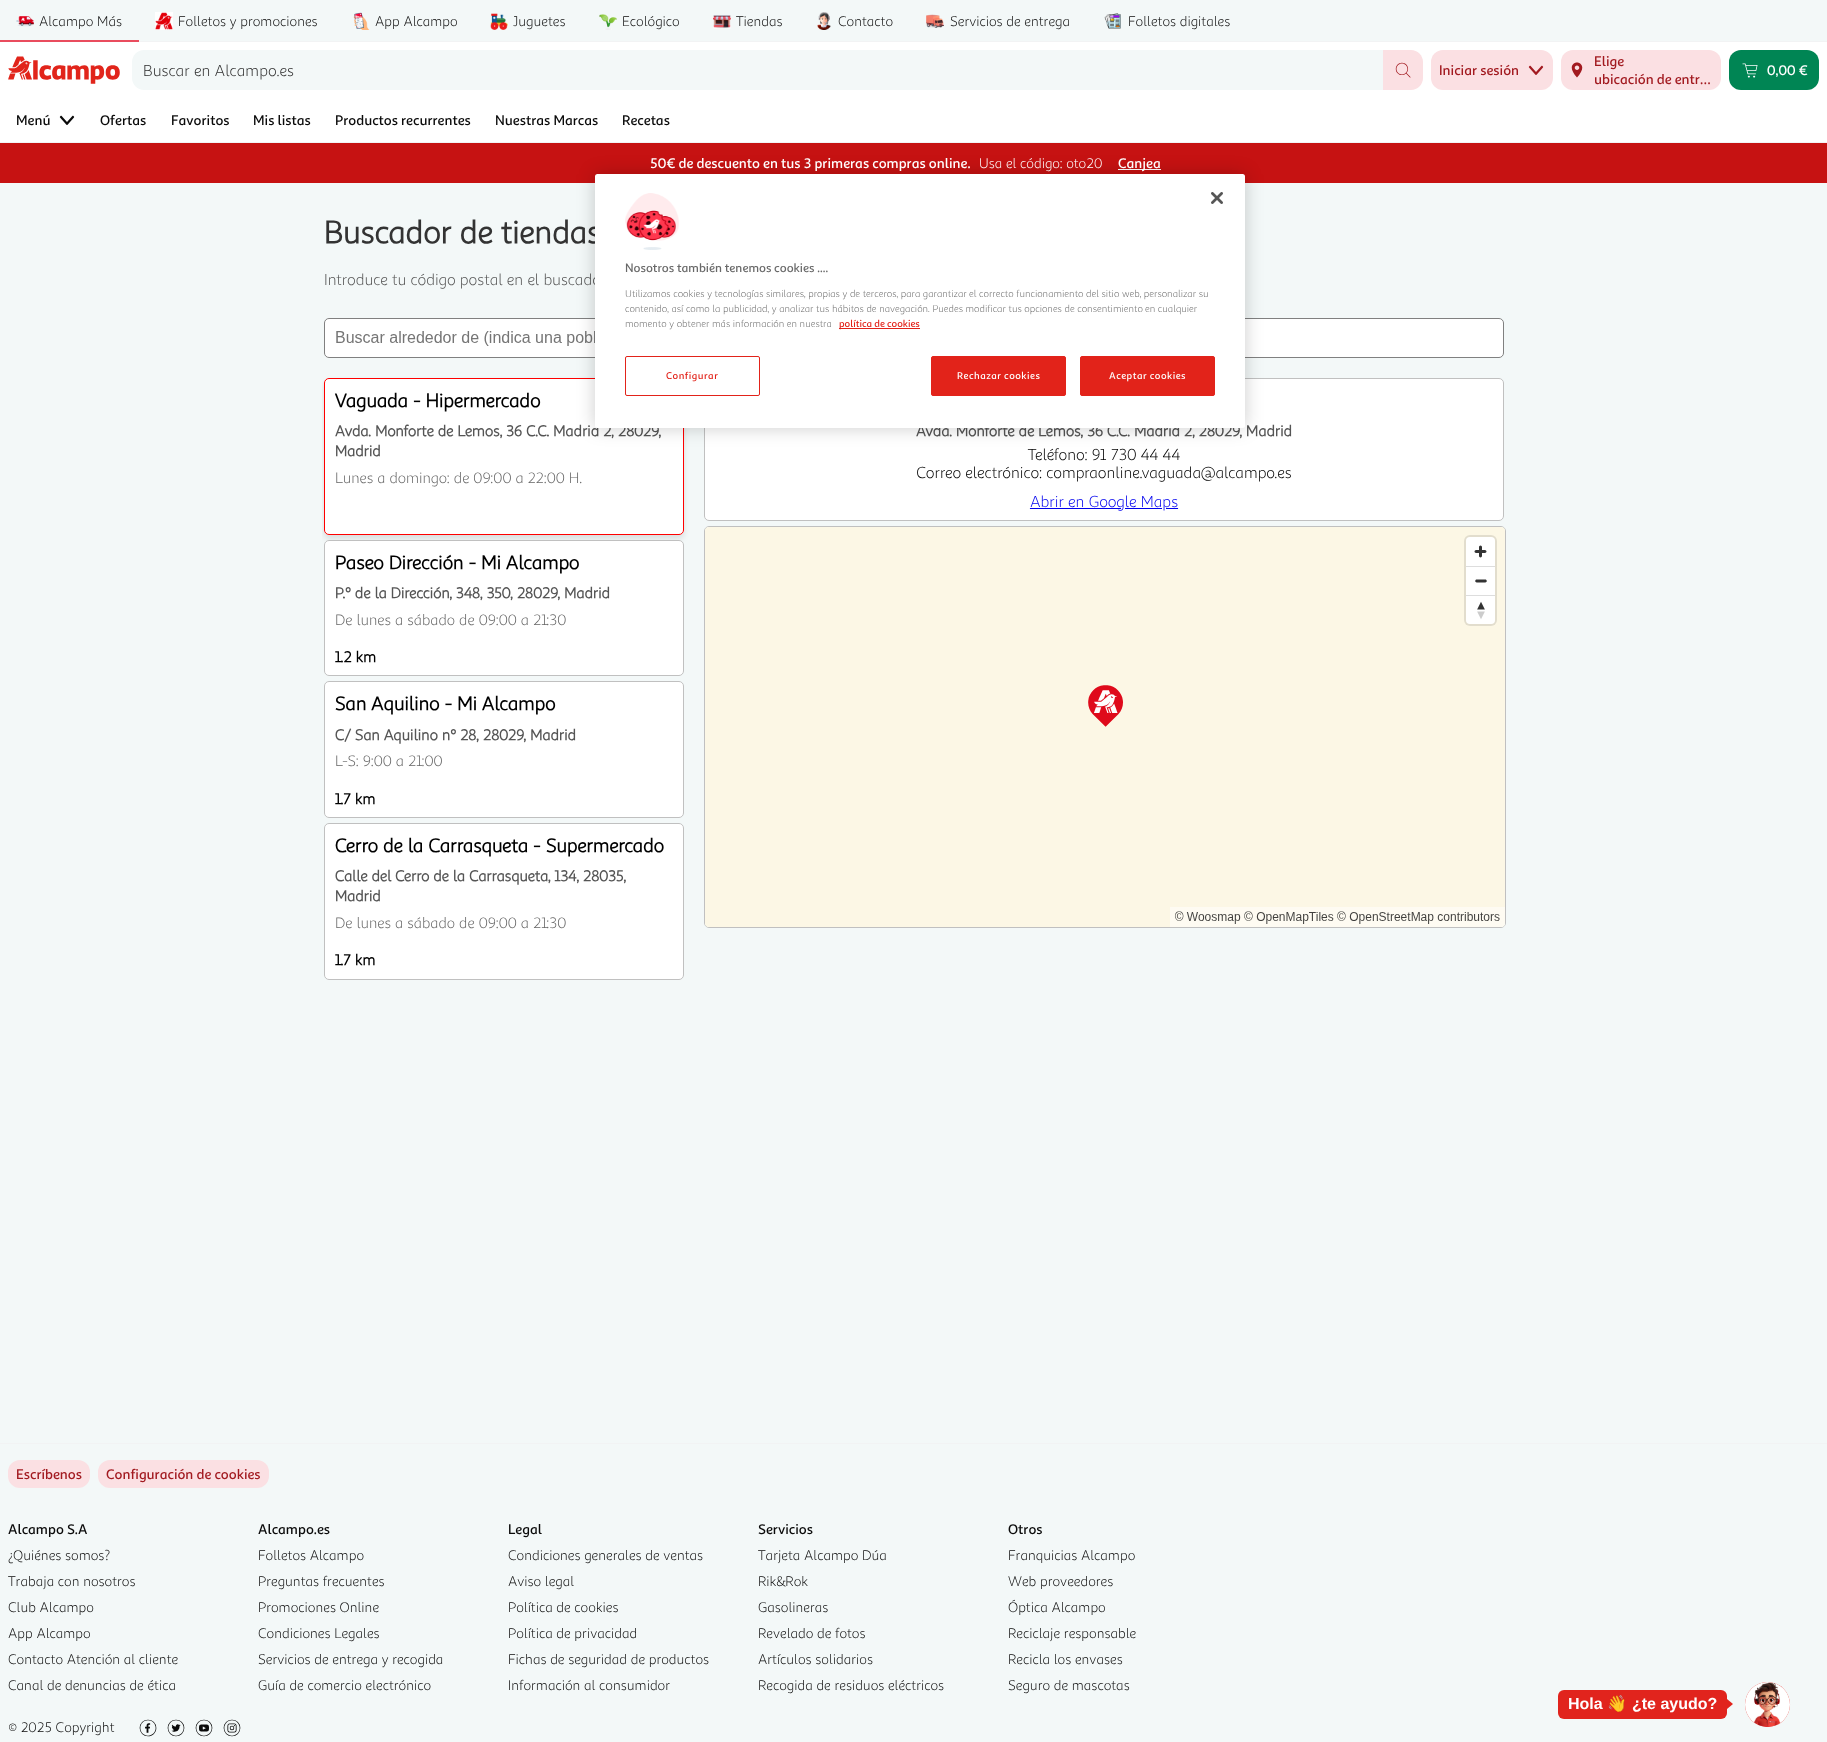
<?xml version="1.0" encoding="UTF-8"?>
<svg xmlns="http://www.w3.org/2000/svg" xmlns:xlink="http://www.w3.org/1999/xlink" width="1827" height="1742">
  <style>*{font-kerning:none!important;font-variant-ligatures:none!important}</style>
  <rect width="100%" height="100%" fill="#f3f8f8" />
  <image x="16" y="16" width="18" height="11" xlink:href="image1.png" />
  <rect y="40" width="139" height="2" fill="#e94c5e" />
  <image x="155" y="12" width="18" height="18" xlink:href="image2.png" />
  <image x="353" y="12" width="17" height="18" xlink:href="image3.png" />
  <image x="490" y="13" width="18" height="17" xlink:href="image4.png" />
  <image x="599" y="14" width="18" height="16" xlink:href="image5.png" />
  <image x="713" y="15" width="18" height="14" xlink:href="image6.png" />
  <image x="817" y="12" width="14" height="18" xlink:href="image7.png" />
  <image x="926" y="14" width="18" height="14" xlink:href="image8.png" />
  <image x="1104" y="13" width="17" height="16" xlink:href="image9.png" />
  <rect x="139" y="41" width="1688" height="1" fill="#f2f3f4" />
  <rect y="142" width="1827" height="1" fill="#f2f3f4" />
  <rect y="42" width="1827" height="100" fill="#ffffff" />
  <image x="8" y="56" width="112" height="28" xlink:href="image10.png" />
  <path d="M 144 50 h 1239 v 40 h -1239 c -6.5 0 -12 -5.5 -12 -12 v -16 c 0 -6.5 5.5 -12 12 -12 z" fill="#f3f8f8" />
  <path d="M 1383 50 h 28 c 6.5 0 12 5.5 12 12 v 16 c 0 6.5 -5.5 12 -12 12 h -28 z" fill="#fbe0e3" />
  <image x="1395" y="62" width="16" height="16" xlink:href="image11.png" />
  <rect x="1431" y="50" width="122" height="40" rx="12" fill="#fbe0e3" />
  <image x="1528" y="65" width="16" height="10" xlink:href="image12.png" />
  <rect x="1561" y="50" width="160" height="40" rx="12" fill="#fbe0e3" />
  <image x="1571" y="62" width="12" height="16" xlink:href="image13.png" />
  <rect x="1729" y="50" width="90" height="40" rx="12" fill="#008554" />
  <image x="1742" y="63" width="16" height="15" xlink:href="image14.png" />
  <image x="59" y="115" width="16" height="10" xlink:href="image15.png" />
  <rect y="143" width="1827" height="40" fill="#c61212" />
  <rect x="1118" y="169" width="43" height="1" fill="#ffffff" />
  <image x="322" y="219" width="1184" height="761" xlink:href="image16.png" />
  <rect y="1443" width="1827" height="1" fill="#f2f3f4" />
  <rect x="8" y="1460" width="82" height="28" rx="12" fill="#fbe0e3" />
  <rect x="98" y="1460" width="171" height="28" rx="12" fill="#fbe0e3" />
  <image x="139" y="1719" width="18" height="18" xlink:href="image17.png" />
  <image x="167" y="1719" width="18" height="18" xlink:href="image18.png" />
  <image x="195" y="1719" width="18" height="18" xlink:href="image19.png" />
  <image x="223" y="1719" width="18" height="18" xlink:href="image20.png" />
  <rect x="595" y="174" width="650" height="254" rx="2.5" fill="#000000" fill-opacity="0.2" filter="blur(9px)" />
  <rect x="595" y="174" width="650" height="254" rx="2.5" fill="#ffffff" />
  <image x="1211" y="192" width="12" height="12" xlink:href="image21.png" />
  <image x="625" y="193" width="54" height="57" xlink:href="image22.png" />
  <rect x="839" y="328" width="81" height="1" fill="#e2231a" />
  <rect x="625.5" y="356.5" width="134" height="39" rx="1.5" fill="none" stroke="#e2231a" />
  <rect x="931.5" y="356.5" width="134" height="39" rx="1.5" fill="#e2231a" stroke="#e2231a" />
  <rect x="1080.5" y="356.5" width="134" height="39" rx="1.5" fill="#e2231a" stroke="#e2231a" />
  <rect x="1558" y="1690" width="169" height="29" rx="6" fill="#e1241d" />
  <path d="M 1727 1709 v -10 l 6 5 z" fill="#e1241d" />
  <circle cx="1767.5" cy="1704.5" r="22.5" fill="#e1241d" />
  <image x="1745" y="1682" width="45" height="45" xlink:href="image23.png" />
  <text x="39" y="26" style="font-family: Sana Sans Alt; font-size: 14px; fill: #0a0a0a">Alcampo Más</text>
  <text x="178" y="26" style="font-family: Sana Sans Alt; font-size: 14px; fill: #0a0a0a">Folletos y promociones</text>
  <text x="375" y="26" style="font-family: Sana Sans Alt; font-size: 14px; fill: #0a0a0a">App Alcampo</text>
  <text x="513" y="26" style="font-family: Sana Sans Alt; font-size: 14px; fill: #0a0a0a">Juguetes</text>
  <text x="622" y="26" style="font-family: Sana Sans Alt; font-size: 14px; fill: #0a0a0a">Ecológico</text>
  <text x="736" y="26" style="font-family: Sana Sans Alt; font-size: 14px; fill: #0a0a0a">Tiendas</text>
  <text x="838" y="26" style="font-family: Sana Sans Alt; font-size: 14px; fill: #0a0a0a">Contacto</text>
  <text x="950" y="26" style="font-family: Sana Sans Alt; font-size: 14px; fill: #0a0a0a">Servicios de entrega</text>
  <text x="1128" y="26" style="font-family: Sana Sans Alt; font-size: 14px; fill: #0a0a0a">Folletos digitales</text>
  <text x="143" y="76" style="font-family: Sana Sans Alt; font-size: 16px; fill: #2e2e2e">Buscar en Alcampo.es</text>
  <text x="1439" y="75" style="font-family: Sana Sans Alt; font-size: 14px; font-weight: 500; fill: #a21a20">Iniciar sesión</text>
  <text x="1594" y="66" style="font-family: Sana Sans Alt; font-size: 14px; font-weight: 500; fill: #a21a20">Elige</text>
  <text x="1594" y="84" style="font-family: Sana Sans Alt; font-size: 14px; font-weight: 500; fill: #a21a20">ubicación de entr…</text>
  <text x="1767" y="75" style="font-family: Sana Sans Alt; font-size: 14px; font-weight: 500; fill: #ffffff">0,00 €</text>
  <text x="16" y="125" style="font-family: Sana Sans Alt; font-size: 14px; font-weight: 500; fill: #0a0a0a">Menú</text>
  <text x="100" y="125" style="font-family: Sana Sans Alt; font-size: 14px; font-weight: 500; fill: #0a0a0a">Ofertas</text>
  <text x="171" y="125" style="font-family: Sana Sans Alt; font-size: 14px; font-weight: 500; fill: #0a0a0a">Favoritos</text>
  <text x="253" y="125" style="font-family: Sana Sans Alt; font-size: 14px; font-weight: 500; fill: #0a0a0a">Mis listas</text>
  <text x="335" y="125" style="font-family: Sana Sans Alt; font-size: 14px; font-weight: 500; fill: #0a0a0a">Productos recurrentes</text>
  <text x="495" y="125" style="font-family: Sana Sans Alt; font-size: 14px; font-weight: 500; fill: #0a0a0a">Nuestras Marcas</text>
  <text x="622" y="125" style="font-family: Sana Sans Alt; font-size: 14px; font-weight: 500; fill: #0a0a0a">Recetas</text>
  <text x="650" y="168" style="font-family: Sana Sans Alt; font-size: 14px; font-weight: 500; fill: #ffffff">50€ de descuento en tus 3 primeras compras online.</text>
  <text x="979" y="168" style="font-family: Sana Sans Alt; font-size: 14px; fill: #ffffff">Usa el código: oto20</text>
  <text x="1118" y="168" style="font-family: Sana Sans Alt; font-size: 14px; font-weight: 500; fill: #ffffff">Canjea</text>
  <text x="16" y="1479" style="font-family: Sana Sans Alt; font-size: 14px; font-weight: 500; fill: #a21a20">Escríbenos</text>
  <text x="106" y="1479" style="font-family: Sana Sans Alt; font-size: 14px; font-weight: 500; fill: #a21a20">Configuración de cookies</text>
  <text x="8" y="1534" style="font-family: Sana Sans Alt; font-size: 14px; font-weight: 500; fill: #0a0a0a">Alcampo S.A</text>
  <text x="8" y="1560" style="font-family: Sana Sans Alt; font-size: 14px; fill: #0a0a0a">¿Quiénes somos?</text>
  <text x="8" y="1586" style="font-family: Sana Sans Alt; font-size: 14px; fill: #0a0a0a">Trabaja con nosotros</text>
  <text x="8" y="1612" style="font-family: Sana Sans Alt; font-size: 14px; fill: #0a0a0a">Club Alcampo</text>
  <text x="8" y="1638" style="font-family: Sana Sans Alt; font-size: 14px; fill: #0a0a0a">App Alcampo</text>
  <text x="8" y="1664" style="font-family: Sana Sans Alt; font-size: 14px; fill: #0a0a0a">Contacto Atención al cliente</text>
  <text x="8" y="1690" style="font-family: Sana Sans Alt; font-size: 14px; fill: #0a0a0a">Canal de denuncias de ética</text>
  <text x="258" y="1534" style="font-family: Sana Sans Alt; font-size: 14px; font-weight: 500; fill: #0a0a0a">Alcampo.es</text>
  <text x="258" y="1560" style="font-family: Sana Sans Alt; font-size: 14px; fill: #0a0a0a">Folletos Alcampo</text>
  <text x="258" y="1586" style="font-family: Sana Sans Alt; font-size: 14px; fill: #0a0a0a">Preguntas frecuentes</text>
  <text x="258" y="1612" style="font-family: Sana Sans Alt; font-size: 14px; fill: #0a0a0a">Promociones Online</text>
  <text x="258" y="1638" style="font-family: Sana Sans Alt; font-size: 14px; fill: #0a0a0a">Condiciones Legales</text>
  <text x="258" y="1664" style="font-family: Sana Sans Alt; font-size: 14px; fill: #0a0a0a">Servicios de entrega y recogida</text>
  <text x="258" y="1690" style="font-family: Sana Sans Alt; font-size: 14px; fill: #0a0a0a">Guía de comercio electrónico</text>
  <text x="508" y="1534" style="font-family: Sana Sans Alt; font-size: 14px; font-weight: 500; fill: #0a0a0a">Legal</text>
  <text x="508" y="1560" style="font-family: Sana Sans Alt; font-size: 14px; fill: #0a0a0a">Condiciones generales de ventas</text>
  <text x="508" y="1586" style="font-family: Sana Sans Alt; font-size: 14px; fill: #0a0a0a">Aviso legal</text>
  <text x="508" y="1612" style="font-family: Sana Sans Alt; font-size: 14px; fill: #0a0a0a">Política de cookies</text>
  <text x="508" y="1638" style="font-family: Sana Sans Alt; font-size: 14px; fill: #0a0a0a">Política de privacidad</text>
  <text x="508" y="1664" style="font-family: Sana Sans Alt; font-size: 14px; fill: #0a0a0a">Fichas de seguridad de productos</text>
  <text x="508" y="1690" style="font-family: Sana Sans Alt; font-size: 14px; fill: #0a0a0a">Información al consumidor</text>
  <text x="758" y="1534" style="font-family: Sana Sans Alt; font-size: 14px; font-weight: 500; fill: #0a0a0a">Servicios</text>
  <text x="758" y="1560" style="font-family: Sana Sans Alt; font-size: 14px; fill: #0a0a0a">Tarjeta Alcampo Dúa</text>
  <text x="758" y="1586" style="font-family: Sana Sans Alt; font-size: 14px; fill: #0a0a0a">Rik&amp;Rok</text>
  <text x="758" y="1612" style="font-family: Sana Sans Alt; font-size: 14px; fill: #0a0a0a">Gasolineras</text>
  <text x="758" y="1638" style="font-family: Sana Sans Alt; font-size: 14px; fill: #0a0a0a">Revelado de fotos</text>
  <text x="758" y="1664" style="font-family: Sana Sans Alt; font-size: 14px; fill: #0a0a0a">Artículos solidarios</text>
  <text x="758" y="1690" style="font-family: Sana Sans Alt; font-size: 14px; fill: #0a0a0a">Recogida de residuos eléctricos</text>
  <text x="1008" y="1534" style="font-family: Sana Sans Alt; font-size: 14px; font-weight: 500; fill: #0a0a0a">Otros</text>
  <text x="1008" y="1560" style="font-family: Sana Sans Alt; font-size: 14px; fill: #0a0a0a">Franquicias Alcampo</text>
  <text x="1008" y="1586" style="font-family: Sana Sans Alt; font-size: 14px; fill: #0a0a0a">Web proveedores</text>
  <text x="1008" y="1612" style="font-family: Sana Sans Alt; font-size: 14px; fill: #0a0a0a">Óptica Alcampo</text>
  <text x="1008" y="1638" style="font-family: Sana Sans Alt; font-size: 14px; fill: #0a0a0a">Reciclaje responsable</text>
  <text x="1008" y="1664" style="font-family: Sana Sans Alt; font-size: 14px; fill: #0a0a0a">Recicla los envases</text>
  <text x="1008" y="1690" style="font-family: Sana Sans Alt; font-size: 14px; fill: #0a0a0a">Seguro de mascotas</text>
  <text x="8" y="1732" style="font-family: Sana Sans Alt; font-size: 14px; fill: #0a0a0a">© 2025 Copyright</text>
  <text x="625" y="272" style="font-family: Sana Sans Alt; font-size: 12.25px; font-weight: 500; fill: #696969">Nosotros también tenemos cookies ....</text>
  <text x="625" y="297" style="font-family: Sana Sans Alt; font-size: 9.95px; fill: #696969">Utilizamos cookies y tecnologías similares, propias y de terceros, para garantizar</text>
  <text x="969" y="297" style="font-family: Sana Sans Alt; font-size: 9.95px; fill: #696969">el correcto funcionamiento del sitio web, personalizar su</text>
  <text x="625" y="312" style="font-family: Sana Sans Alt; font-size: 9.95px; fill: #696969">contenido, así como la publicidad, y analizar tus hábitos de navegación. Puedes modificar tus opciones de consentimiento</text>
  <text x="1145" y="312" style="font-family: Sana Sans Alt; font-size: 9.95px; fill: #696969">en cualquier</text>
  <text x="625" y="327" style="font-family: Sana Sans Alt; font-size: 9.95px; fill: #696969">momento y obtener más información en nuestra</text>
  <text x="839" y="327" style="font-family: Sana Sans Alt; font-size: 9.95px; font-weight: 500; fill: #e2231a">política de cookies</text>
  <text x="666" y="379" style="font-family: Sana Sans Alt; font-size: 9.95px; font-weight: 500; letter-spacing: 0.5px; fill: #e2231a">Configurar</text>
  <text x="957" y="379" style="font-family: Sana Sans Alt; font-size: 9.95px; font-weight: 500; letter-spacing: 0.5px; fill: #ffffff">Rechazar cookies</text>
  <text x="1109" y="379" style="font-family: Sana Sans Alt; font-size: 9.95px; font-weight: 500; letter-spacing: 0.5px; fill: #ffffff">Aceptar cookies</text>
  <text x="1568" y="1709" style="font-family: Liberation Sans; font-size: 16px; font-weight: bold; fill: #ffffff">Hola</text>
  <text x="1607" y="1709" style="font-family: Noto Color Emoji; font-size: 16px; font-weight: bold; fill: #ffffff">👋</text>
  <text x="1632" y="1709" style="font-family: Liberation Sans; font-size: 16px; font-weight: bold; fill: #ffffff">¿te ayudo?</text>
</svg>
